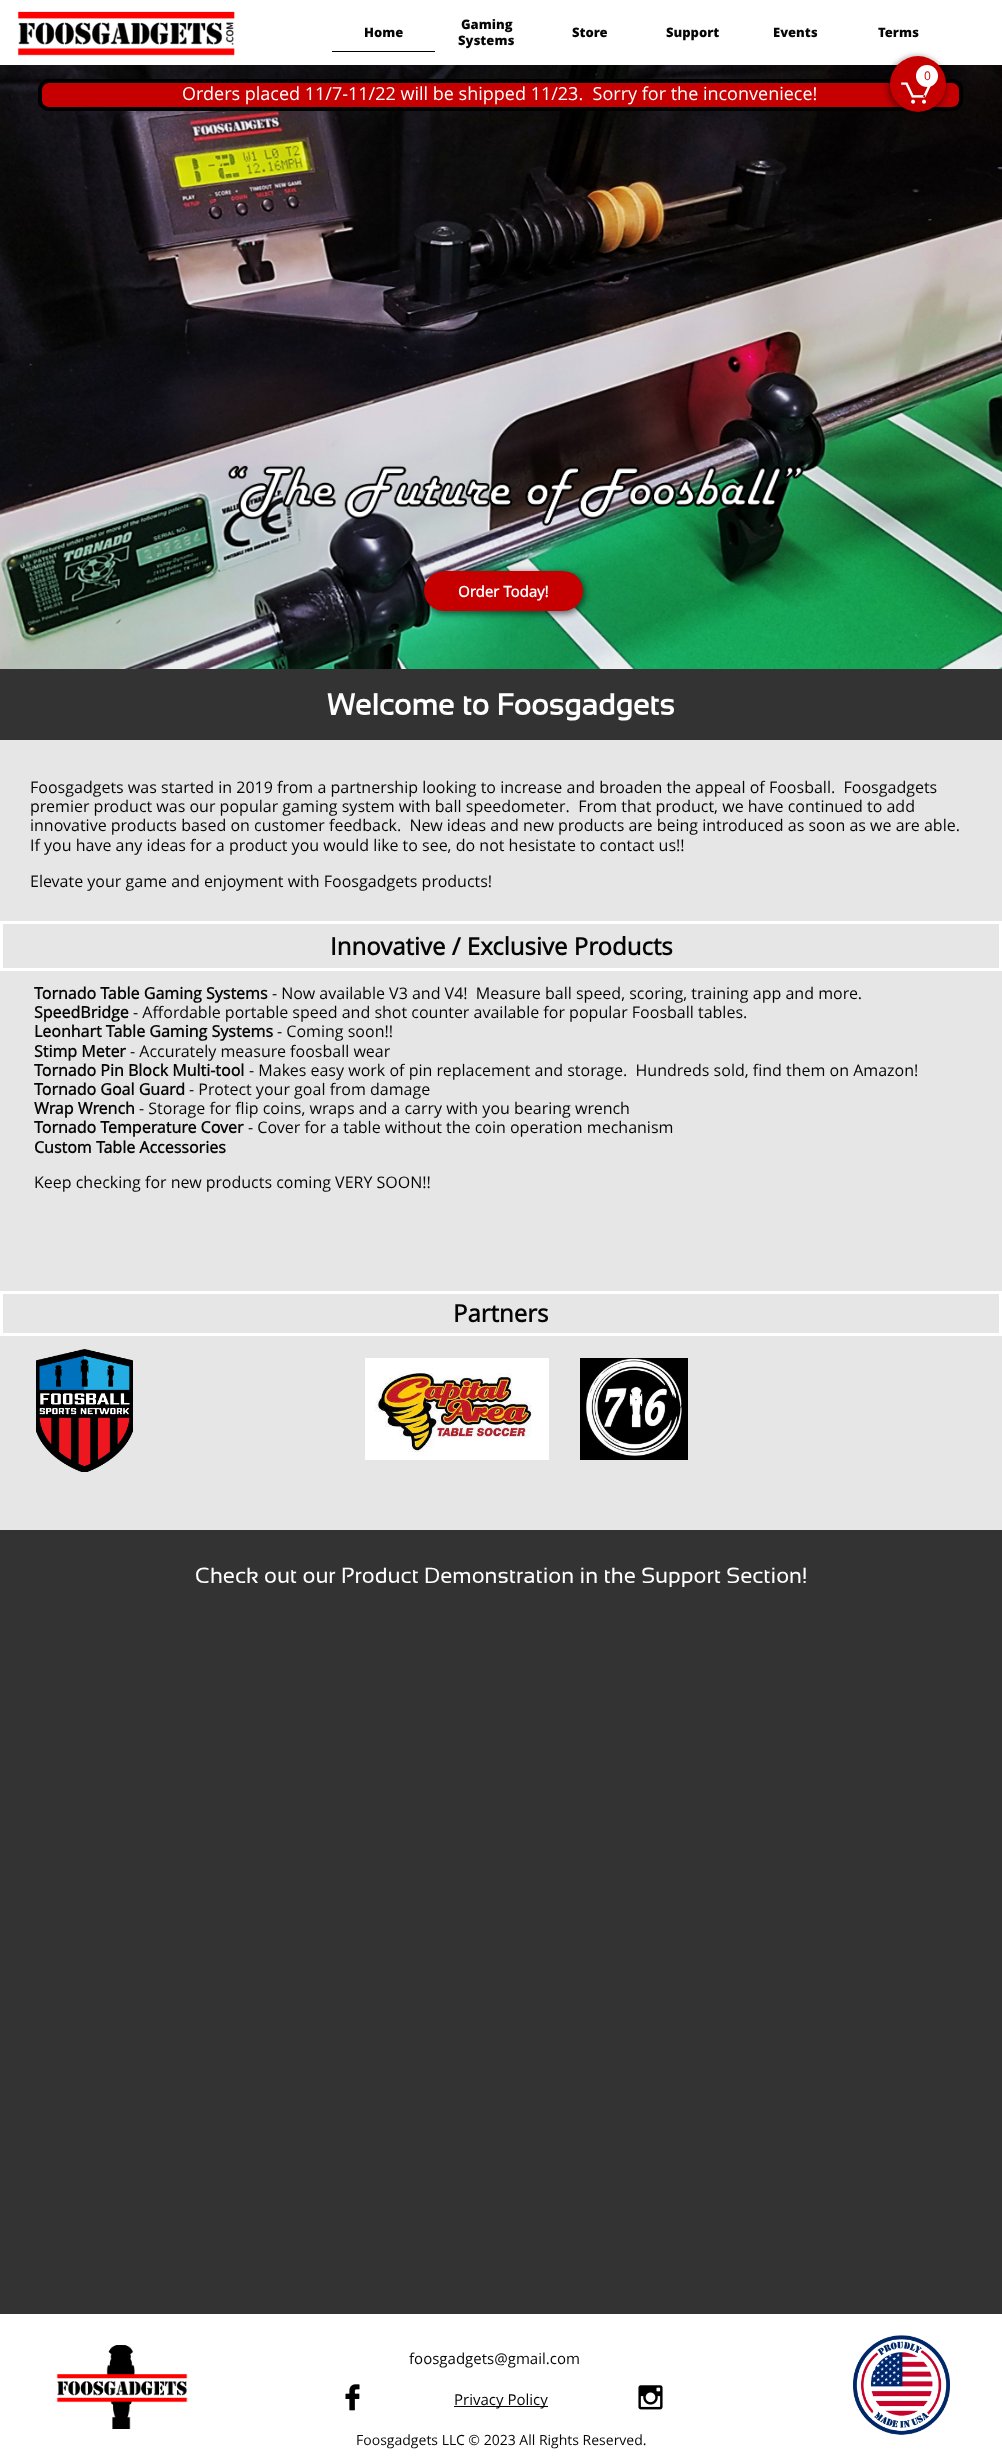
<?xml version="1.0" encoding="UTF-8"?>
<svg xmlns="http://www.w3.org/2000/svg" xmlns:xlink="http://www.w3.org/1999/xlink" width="1002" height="2458">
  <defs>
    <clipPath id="clip1"><path d="M 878 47 h 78 v 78 h -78 z m 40 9 c 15.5 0 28 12.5 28 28 c 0 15.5 -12.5 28 -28 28 c -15.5 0 -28 -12.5 -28 -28 c 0 -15.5 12.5 -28 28 -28 z" clip-rule="evenodd" /></clipPath>
    <clipPath id="clip2"><path d="M 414 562 h 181 v 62 h -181 z m 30 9 h 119 c 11 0 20 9 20 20 c 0 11 -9 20 -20 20 h -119 c -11 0 -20 -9 -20 -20 c 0 -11 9 -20 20 -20 z" clip-rule="evenodd" /></clipPath>
  </defs>
  <rect width="100%" height="100%" fill="#ffffff" />
  <image x="17" y="11" width="218" height="45" xlink:href="image1.png" />
  <rect x="332" y="51" width="103" height="1" fill="#000000" />
  <image x="0" y="65" width="1002" height="604" xlink:href="image3.png" />
  <rect x="40" y="81" width="921" height="28" rx="9" fill="#c60000" stroke="#000000" stroke-width="4" />
  <circle cx="918" cy="84" r="28" fill="#c60000" />
  <g clip-path="url(#clip1)">
    <rect x="888" y="57" width="58" height="58" rx="29" fill="#050505" fill-opacity="0.5" filter="blur(3px)" />
  </g>
  <image x="901" y="82" width="30" height="22" xlink:href="image2.png" />
  <circle cx="927" cy="76" r="11" fill="#ffffff" />
  <image x="228" y="465" width="576" height="62" xlink:href="image4.png" />
  <rect x="424" y="571" width="159" height="40" rx="20" fill="#c60000" />
  <g clip-path="url(#clip2)">
    <rect x="424" y="572" width="161" height="42" rx="21" fill="#000000" fill-opacity="0.53" filter="blur(3px)" />
  </g>
  <rect y="669" width="1002" height="71" fill="#333333" />
  <rect y="740" width="1002" height="181" fill="#e6e6e6" />
  <rect y="924" width="1002" height="606" fill="#e6e6e6" />
  <rect x="1.5" y="922.5" width="999" height="47" fill="none" stroke="#ffffff" stroke-width="3" />
  <rect x="1.5" y="1292.5" width="999" height="42" fill="none" stroke="#ffffff" stroke-width="3" />
  <image x="36" y="1349" width="97" height="123" xlink:href="image5.png" />
  <image x="365" y="1358" width="184" height="102" xlink:href="image6.png" />
  <image x="580" y="1358" width="108" height="102" xlink:href="image7.png" />
  <rect y="1530" width="1002" height="784" fill="#333333" />
  <image x="56" y="2345" width="132" height="84" xlink:href="image8.png" />
  <image x="853" y="2335" width="97" height="100" xlink:href="image9.png" />
  <image x="345" y="2384" width="15" height="27" xlink:href="image10.png" />
  <image x="638" y="2385" width="25" height="25" xlink:href="image11.png" />
  <rect x="454" y="2406" width="94" height="1" fill="#050505" />
  <text x="364" y="37" style="font-family: Open Sans; font-size: 13px; font-weight: 800; fill: #050505">Home</text>
  <text x="461" y="29" style="font-family: Open Sans; font-size: 13px; font-weight: 800; fill: #050505">Gaming</text>
  <text x="458" y="45" style="font-family: Open Sans; font-size: 13px; font-weight: 800; fill: #050505">Systems</text>
  <text x="572" y="37" style="font-family: Open Sans; font-size: 13px; font-weight: 800; fill: #050505">Store</text>
  <text x="666" y="37" style="font-family: Open Sans; font-size: 13px; font-weight: 800; fill: #050505">Support</text>
  <text x="773" y="37" style="font-family: Open Sans; font-size: 13px; font-weight: 800; fill: #050505">Events</text>
  <text x="878" y="37" style="font-family: Open Sans; font-size: 13px; font-weight: 800; fill: #050505">Terms</text>
  <text x="924" y="80" style="font-family: Open Sans; font-size: 12px; fill: #c60000">0</text>
  <text x="182" y="100" style="font-family: Open Sans; font-size: 18px; fill: #ffffff" xml:space="preserve">Orders placed 11/7-11/22 will be shipped 11/23.  Sorry for the inconveniece!</text>
  <text x="458" y="597" style="font-family: Open Sans; font-size: 15px; font-weight: bold; fill: #ffffff">Order Today!</text>
  <text x="327" y="715" style="font-family: Sansation; font-size: 30px; font-weight: bold; fill: #ffffff">Welcome to Foosgadgets</text>
  <text x="30" y="793" style="font-family: Open Sans; font-size: 16px; fill: #050505" xml:space="preserve">Foosgadgets was started in 2019 from a partnership looking to increase and broaden the appeal of Foosball.  Foosgadgets</text>
  <text x="30" y="812" style="font-family: Open Sans; font-size: 16px; fill: #050505" xml:space="preserve">premier product was our popular gaming system with ball speedometer.  From that product, we have continued to add</text>
  <text x="30" y="831" style="font-family: Open Sans; font-size: 16px; fill: #050505" xml:space="preserve">innovative products based on customer feedback.  New ideas and new products are being introduced as soon as we are able.</text>
  <text x="30" y="851" style="font-family: Open Sans; font-size: 16px; fill: #050505">If you have any ideas for a product you would like to see, do not hesistate to contact us!!</text>
  <text x="30" y="887" style="font-family: Open Sans; font-size: 16px; fill: #050505">Elevate your game and enjoyment with Foosgadgets products!</text>
  <text x="330" y="955" style="font-family: Open Sans; font-size: 24px; font-weight: bold; fill: #050505">Innovative / Exclusive Products</text>
  <text x="34" y="999" style="font-family: Open Sans; font-size: 16px; font-weight: bold; fill: #050505">Tornado Table Gaming Systems</text>
  <text x="272" y="999" style="font-family: Open Sans; font-size: 16px; fill: #050505" xml:space="preserve">- Now available V3 and V4!  Measure ball speed, scoring, training app and more.</text>
  <text x="34" y="1018" style="font-family: Open Sans; font-size: 16px; font-weight: bold; fill: #050505">SpeedBridge</text>
  <text x="133" y="1018" style="font-family: Open Sans; font-size: 16px; fill: #050505">- Affordable portable speed and shot counter available for popular Foosball tables.</text>
  <text x="34" y="1037" style="font-family: Open Sans; font-size: 16px; font-weight: bold; fill: #050505">Leonhart Table Gaming Systems</text>
  <text x="277" y="1037" style="font-family: Open Sans; font-size: 16px; fill: #050505">- Coming soon!!</text>
  <text x="34" y="1057" style="font-family: Open Sans; font-size: 16px; font-weight: bold; fill: #050505">Stimp Meter</text>
  <text x="130" y="1057" style="font-family: Open Sans; font-size: 16px; fill: #050505">- Accurately measure foosball wear</text>
  <text x="34" y="1076" style="font-family: Open Sans; font-size: 16px; font-weight: bold; fill: #050505">Tornado Pin Block Multi-tool</text>
  <text x="249" y="1076" style="font-family: Open Sans; font-size: 16px; fill: #050505" xml:space="preserve">- Makes easy work of pin replacement and storage.  Hundreds sold, find them on Amazon!</text>
  <text x="34" y="1095" style="font-family: Open Sans; font-size: 16px; font-weight: bold; fill: #050505">Tornado Goal Guard</text>
  <text x="189" y="1095" style="font-family: Open Sans; font-size: 16px; fill: #050505">- Protect your goal from damage</text>
  <text x="34" y="1114" style="font-family: Open Sans; font-size: 16px; font-weight: bold; fill: #050505">Wrap Wrench</text>
  <text x="139" y="1114" style="font-family: Open Sans; font-size: 16px; fill: #050505">- Storage for flip coins, wraps and a carry with you bearing wrench</text>
  <text x="34" y="1133" style="font-family: Open Sans; font-size: 16px; font-weight: bold; fill: #050505">Tornado Temperature Cover</text>
  <text x="248" y="1133" style="font-family: Open Sans; font-size: 16px; fill: #050505">- Cover for a table without the coin operation mechanism</text>
  <text x="34" y="1153" style="font-family: Open Sans; font-size: 16px; font-weight: bold; fill: #050505">Custom Table Accessories</text>
  <text x="34" y="1188" style="font-family: Open Sans; font-size: 16px; fill: #050505">Keep checking for new products coming VERY SOON!!</text>
  <text x="453" y="1322" style="font-family: Open Sans; font-size: 24px; font-weight: bold; fill: #050505">Partners</text>
  <text x="195" y="1583" style="font-family: Sansation; font-size: 22px; fill: #ffffff">Check out our Product Demonstration in the Support Section!</text>
  <text x="409" y="2364" style="font-family: Open Sans; font-size: 15px; fill: #050505">foosgadgets@gmail.com</text>
  <text x="454" y="2405" style="font-family: Open Sans; font-size: 15px; fill: #050505">Privacy Policy</text>
  <text x="356" y="2445" style="font-family: Open Sans; font-size: 14px; fill: #050505">Foosgadgets LLC © 2023 All Rights Reserved.</text>
</svg>
